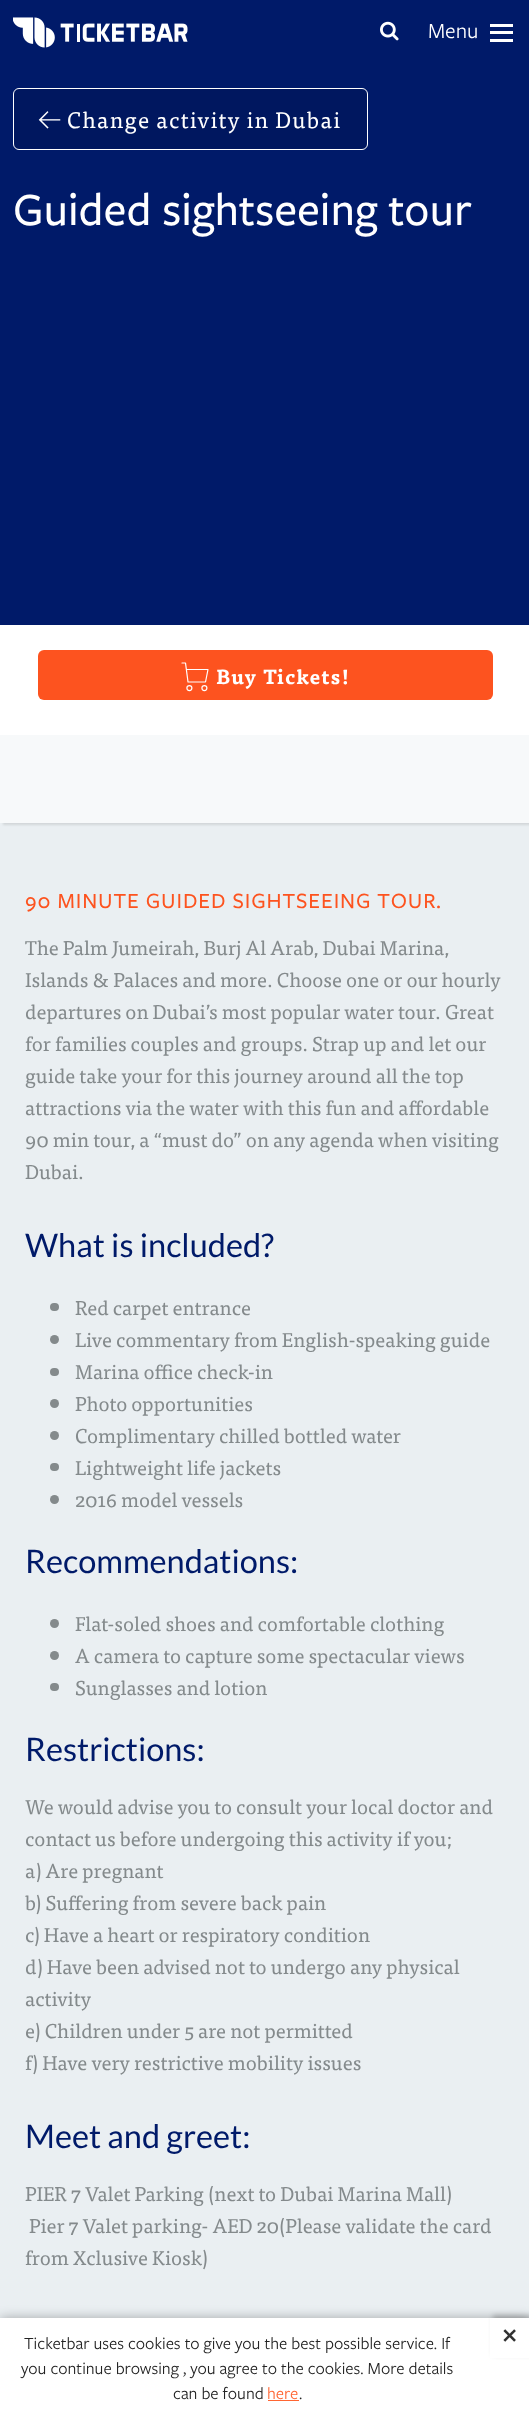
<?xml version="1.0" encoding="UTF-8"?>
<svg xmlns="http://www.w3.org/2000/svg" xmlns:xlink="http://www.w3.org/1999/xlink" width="529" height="2428">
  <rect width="100%" height="100%" fill="#eaeff2" />
  <rect width="529" height="625" fill="#001a69" />
  <image x="13" y="17" width="175" height="31" xlink:href="image1.png" />
  <image x="380" y="21" width="19" height="20" xlink:href="image2.png" />
  <rect x="490" y="31" width="23" height="3" fill="#ffffff" />
  <rect x="490" y="24" width="23" height="3" fill="#ffffff" />
  <rect x="490" y="39" width="23" height="3" fill="#ffffff" />
  <rect x="13.5" y="88.5" width="354" height="61" rx="5.5" fill="#00175f" stroke="#ffffff" />
  <image x="38" y="111" width="23" height="18" xlink:href="image3.png" />
  <rect x="3" y="738" width="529" height="87" fill="#000000" fill-opacity="0.1" filter="blur(1px)" />
  <rect y="625" width="529" height="110" fill="#ffffff" />
  <rect x="38" y="650" width="455" height="50" rx="6" fill="#fd531f" />
  <circle cx="189.4" cy="688.1" r="2.5" fill="none" stroke="#ffffff" stroke-width="1.2" />
  <circle cx="204.4" cy="688.1" r="2.5" fill="none" stroke="#ffffff" stroke-width="1.2" />
  <path d="M 186.5 669.5 h 21.5 l -2.5 12.5 h -17.5 l -2.5 -19 h -3.5" fill="none" stroke="#ffffff" stroke-width="1.2" stroke-linecap="round" stroke-linejoin="round" />
  <rect y="735" width="529" height="88" fill="#f7f9fa" />
  <rect x="50" y="1303" width="9" height="8" rx="4" fill="#848a8c" />
  <circle cx="54.5" cy="1339.5" r="4.5" fill="#848a8c" />
  <rect x="50" y="1368" width="9" height="8" rx="4" fill="#848a8c" />
  <circle cx="54.5" cy="1403.5" r="4.5" fill="#848a8c" />
  <circle cx="54.5" cy="1435.5" r="4.5" fill="#848a8c" />
  <rect x="50" y="1463" width="9" height="8" rx="4" fill="#848a8c" />
  <circle cx="54.5" cy="1499.5" r="4.5" fill="#848a8c" />
  <circle cx="54.5" cy="1623.5" r="4.5" fill="#848a8c" />
  <circle cx="54.5" cy="1655.5" r="4.5" fill="#848a8c" />
  <rect x="50" y="1683" width="9" height="8" rx="4" fill="#848a8c" />
  <rect y="2318" width="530" height="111" fill="#000000" fill-opacity="0.3" filter="blur(6px)" />
  <rect y="2318" width="529" height="110" fill="#ffffff" />
  <rect x="268" y="2400" width="31" height="1" fill="#ff6633" />
  <rect x="493" y="2315" width="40" height="40" fill="#000000" fill-opacity="0.2" filter="blur(2.5px)" />
  <rect x="490" y="2318" width="39" height="40" fill="#ffffff" />
  <text x="428" y="38" style="font-family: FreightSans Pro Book; font-size: 22.5px; fill: #ffffff">Menu</text>
  <text x="67" y="128" style="font-family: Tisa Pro; font-size: 22.5px; letter-spacing: 1.25px; fill: #ffffff">Change activity in Dubai</text>
  <text x="13" y="225" style="font-family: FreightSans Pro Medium; font-size: 47.5px; font-weight: 500; fill: #ffffff">Guided sightseeing tour</text>
  <text x="216" y="684" style="font-family: Tisa Pro; font-size: 20px; font-weight: bold; letter-spacing: 1.25px; fill: #ffffff">Buy Tickets!</text>
  <text x="25" y="908" style="font-family: FreightSans Pro Medium; font-size: 22.5px; font-weight: 500; letter-spacing: 0.9px; fill: #fd531f">90 MINUTE GUIDED SIGHTSEEING TOUR.</text>
  <text x="25" y="955" style="font-family: Tisa Pro; font-size: 20px; fill: #848a8c">The Palm Jumeirah, Burj Al Arab, Dubai Marina,</text>
  <text x="25" y="987" style="font-family: Tisa Pro; font-size: 20px; fill: #848a8c">Islands &amp; Palaces and more. Choose one or our hourly</text>
  <text x="25" y="1019" style="font-family: Tisa Pro; font-size: 20px; fill: #848a8c">departures on Dubai’s most popular water tour. Great</text>
  <text x="25" y="1051" style="font-family: Tisa Pro; font-size: 20px; fill: #848a8c">for families couples and groups. Strap up and let our</text>
  <text x="25" y="1083" style="font-family: Tisa Pro; font-size: 20px; fill: #848a8c">guide take your for this journey around all the top</text>
  <text x="25" y="1115" style="font-family: Tisa Pro; font-size: 20px; fill: #848a8c">attractions via the water with this fun and affordable</text>
  <text x="25" y="1147" style="font-family: Tisa Pro; font-size: 20px; fill: #848a8c">90 min tour, a “must do” on any agenda when visiting</text>
  <text x="25" y="1179" style="font-family: Tisa Pro; font-size: 20px; fill: #848a8c">Dubai.</text>
  <text x="25" y="1257" style="font-family: Lato; font-size: 32.5px; fill: #001a69">What is included?</text>
  <text x="75" y="1315" style="font-family: Tisa Pro; font-size: 20px; fill: #848a8c">Red carpet entrance</text>
  <text x="75" y="1347" style="font-family: Tisa Pro; font-size: 20px; fill: #848a8c">Live commentary from English-speaking guide</text>
  <text x="75" y="1379" style="font-family: Tisa Pro; font-size: 20px; fill: #848a8c">Marina office check-in</text>
  <text x="75" y="1411" style="font-family: Tisa Pro; font-size: 20px; fill: #848a8c">Photo opportunities</text>
  <text x="75" y="1443" style="font-family: Tisa Pro; font-size: 20px; fill: #848a8c">Complimentary chilled bottled water</text>
  <text x="75" y="1475" style="font-family: Tisa Pro; font-size: 20px; fill: #848a8c">Lightweight life jackets</text>
  <text x="75" y="1507" style="font-family: Tisa Pro; font-size: 20px; fill: #848a8c">2016 model vessels</text>
  <text x="25" y="1573" style="font-family: Lato; font-size: 32.5px; fill: #001a69">Recommendations:</text>
  <text x="75" y="1631" style="font-family: Tisa Pro; font-size: 20px; fill: #848a8c">Flat-soled shoes and comfortable clothing</text>
  <text x="75" y="1663" style="font-family: Tisa Pro; font-size: 20px; fill: #848a8c">A camera to capture some spectacular views</text>
  <text x="75" y="1695" style="font-family: Tisa Pro; font-size: 20px; fill: #848a8c">Sunglasses and lotion</text>
  <text x="25" y="1761" style="font-family: Lato; font-size: 32.5px; fill: #001a69">Restrictions:</text>
  <text x="25" y="1814" style="font-family: Tisa Pro; font-size: 20px; fill: #848a8c">We would advise you to consult your local doctor and</text>
  <text x="25" y="1846" style="font-family: Tisa Pro; font-size: 20px; fill: #848a8c">contact us before undergoing this activity if you;</text>
  <text x="25" y="1878" style="font-family: Tisa Pro; font-size: 20px; fill: #848a8c">a) Are pregnant</text>
  <text x="25" y="1910" style="font-family: Tisa Pro; font-size: 20px; fill: #848a8c">b) Suffering from severe back pain</text>
  <text x="25" y="1942" style="font-family: Tisa Pro; font-size: 20px; fill: #848a8c">c) Have a heart or respiratory condition</text>
  <text x="25" y="1974" style="font-family: Tisa Pro; font-size: 20px; fill: #848a8c">d) Have been advised not to undergo any physical</text>
  <text x="25" y="2006" style="font-family: Tisa Pro; font-size: 20px; fill: #848a8c">activity</text>
  <text x="25" y="2038" style="font-family: Tisa Pro; font-size: 20px; fill: #848a8c">e) Children under 5 are not permitted</text>
  <text x="25" y="2070" style="font-family: Tisa Pro; font-size: 20px; fill: #848a8c">f) Have very restrictive mobility issues</text>
  <text x="25" y="2148" style="font-family: Lato; font-size: 32.5px; fill: #001a69">Meet and greet:</text>
  <text x="25" y="2201" style="font-family: Tisa Pro; font-size: 20px; fill: #848a8c">PIER 7 Valet Parking (next to Dubai Marina Mall)</text>
  <text x="29" y="2233" style="font-family: Tisa Pro; font-size: 20px; fill: #848a8c">Pier 7 Valet parking- AED 20(Please validate the card</text>
  <text x="25" y="2265" style="font-family: Tisa Pro; font-size: 20px; fill: #848a8c">from Xclusive Kiosk)</text>
  <text x="24" y="2349" style="font-family: FreightSans Pro Book; font-size: 17.5px; fill: #232323">Ticketbar uses cookies to give you the best possible service. If</text>
  <text x="21" y="2374" style="font-family: FreightSans Pro Book; font-size: 17.5px; fill: #232323">you continue browsing , you agree to the cookies. More details</text>
  <text x="173" y="2399" style="font-family: FreightSans Pro Book; font-size: 17.5px; fill: #232323">can be found</text>
  <text x="267" y="2399" style="font-family: FreightSans Pro Book; font-size: 17.5px; fill: #ff6633">here</text>
  <text x="299" y="2399" style="font-family: FreightSans Pro Book; font-size: 17.5px; fill: #232323">.</text>
  <text x="501" y="2343" style="font-family: DejaVu Sans; font-size: 20px; font-weight: bold; fill: #323232">✕</text>
</svg>
